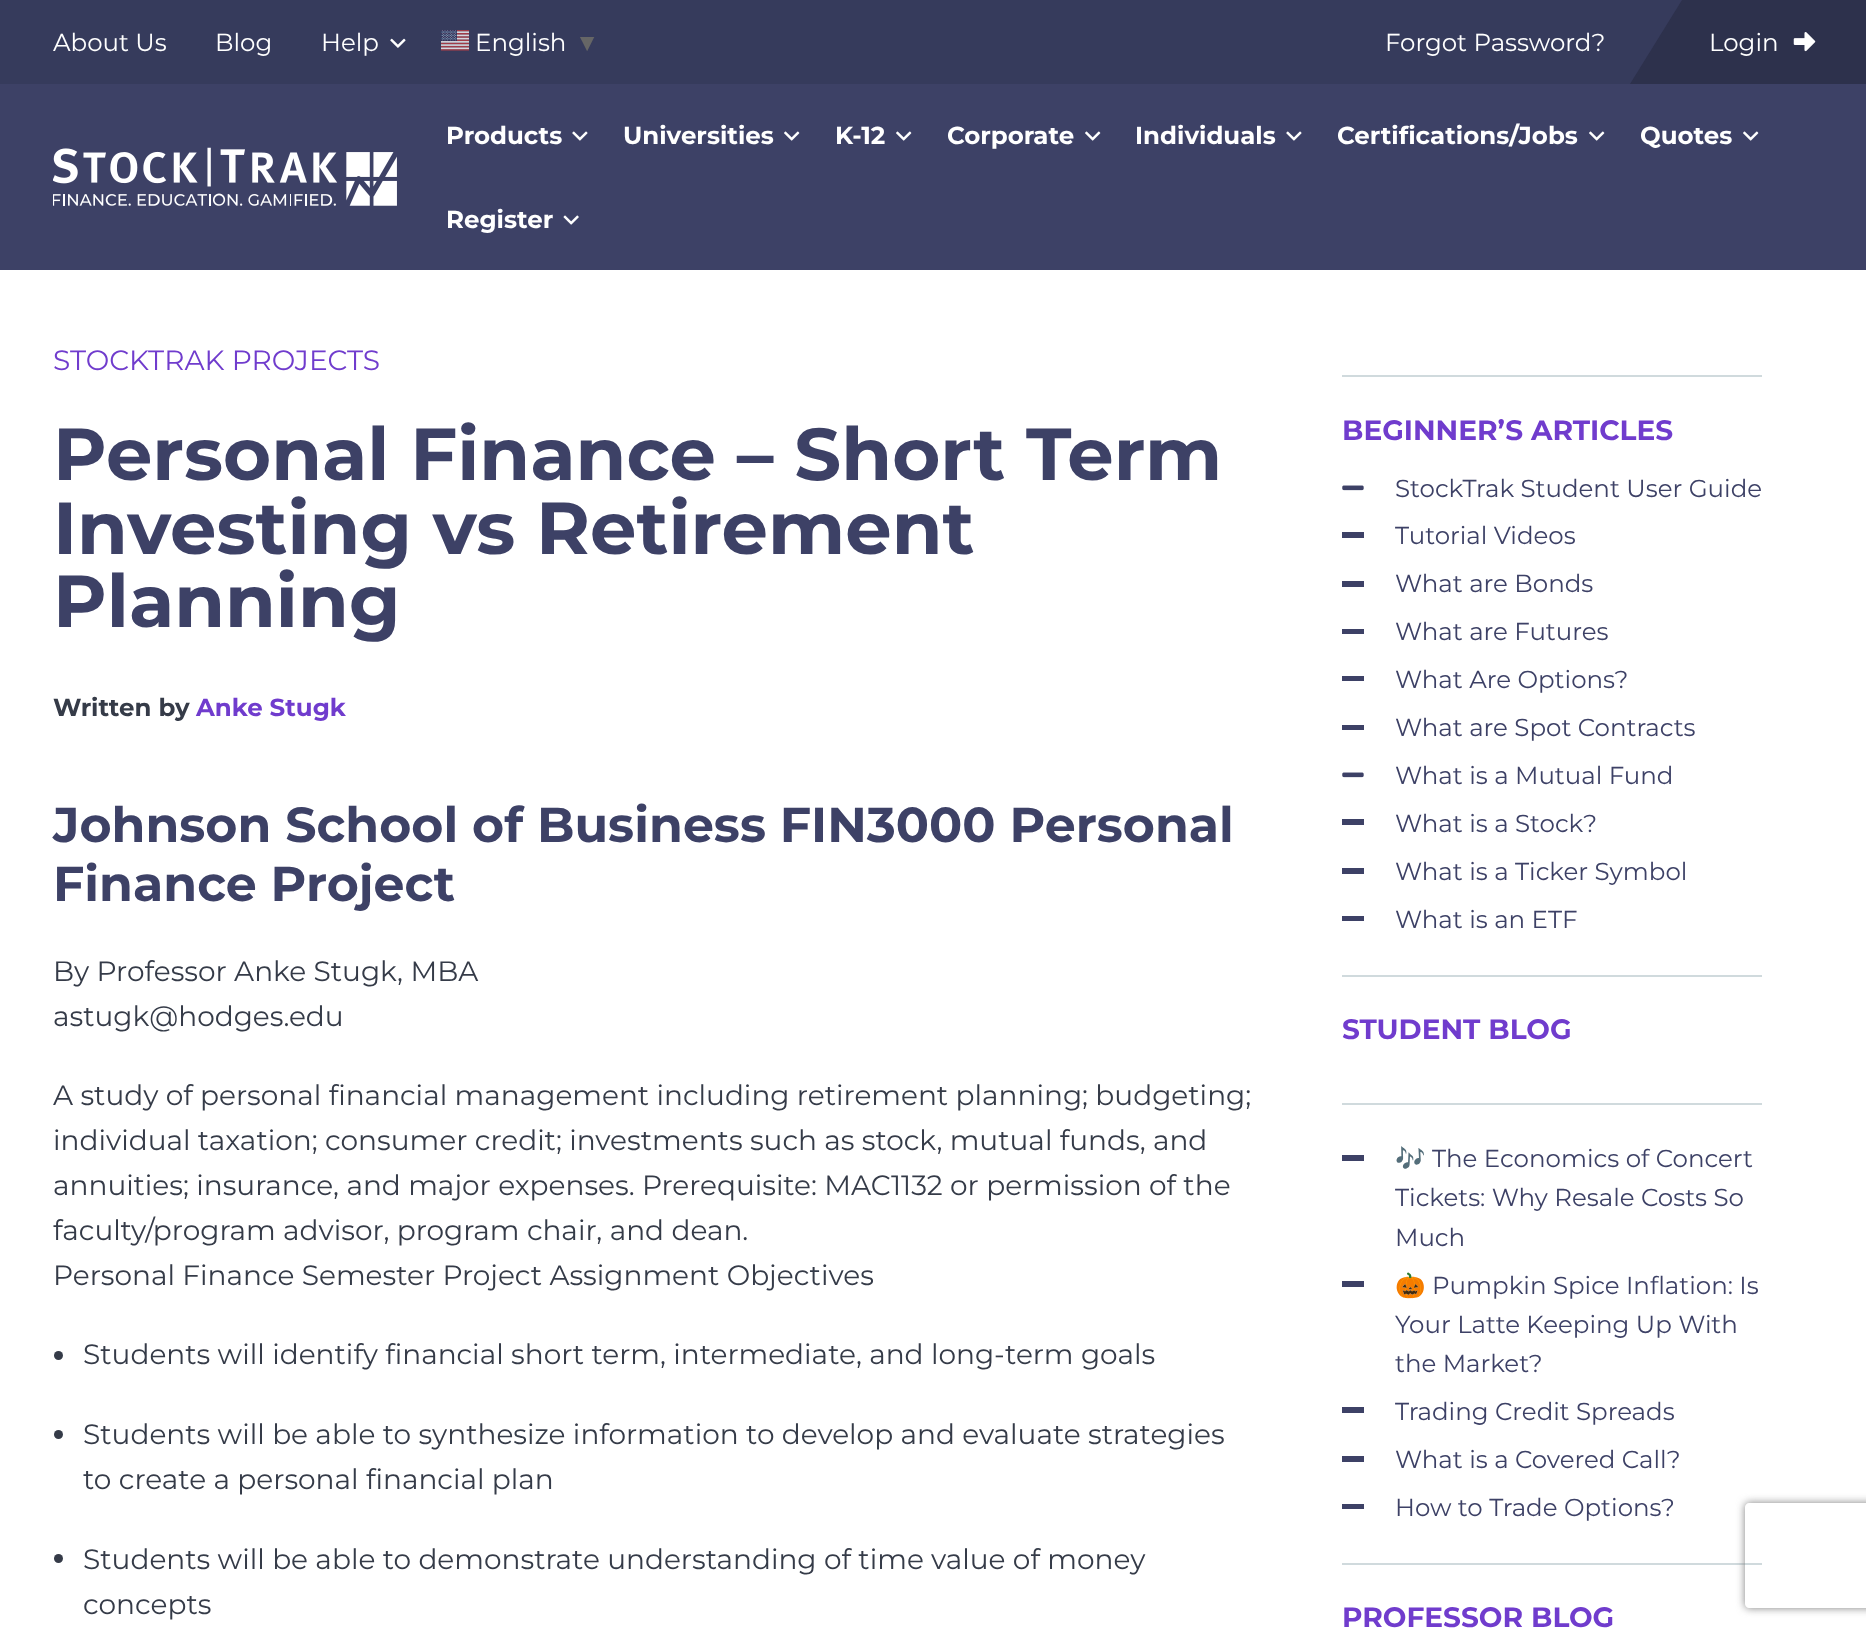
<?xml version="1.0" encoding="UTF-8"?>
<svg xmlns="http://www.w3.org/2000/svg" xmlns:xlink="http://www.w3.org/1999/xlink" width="1866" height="1632">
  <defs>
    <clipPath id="clip1"><path d="M 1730 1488 h 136 v 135 h -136 z m 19 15 h 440 c 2 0 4 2 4 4 v 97 c 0 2 -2 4 -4 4 h -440 c -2 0 -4 -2 -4 -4 v -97 c 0 -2 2 -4 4 -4 z" clip-rule="evenodd" /></clipPath>
  </defs>
  <rect width="100%" height="100%" fill="#ffffff" />
  <rect width="1682" height="84" fill="#363b5c" />
  <image x="390" y="38" width="16" height="10" xlink:href="image1.png" />
  <image x="441" y="30" width="28" height="21" xlink:href="image2.png" />
  <path d="M 1682 0 h 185 v 84 h -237 z" fill="#2d314c" />
  <image x="1793" y="32" width="23" height="20" xlink:href="image3.png" />
  <rect y="84" width="1866" height="186" fill="#3d4166" />
  <image x="53" y="147" width="344" height="59" xlink:href="image4.png" />
  <image x="572" y="131" width="16" height="10" xlink:href="image5.png" />
  <image x="784" y="131" width="16" height="10" xlink:href="image6.png" />
  <image x="896" y="131" width="16" height="10" xlink:href="image6.png" />
  <image x="1085" y="131" width="16" height="10" xlink:href="image6.png" />
  <image x="1286" y="131" width="16" height="10" xlink:href="image5.png" />
  <image x="1589" y="131" width="16" height="10" xlink:href="image6.png" />
  <image x="1743" y="131" width="16" height="10" xlink:href="image6.png" />
  <image x="563" y="215" width="16" height="10" xlink:href="image7.png" />
  <circle cx="58.5" cy="1355.5" r="4.5" fill="#353b48" />
  <circle cx="58.5" cy="1434.5" r="4.5" fill="#353b48" />
  <circle cx="58.5" cy="1558.5" r="4.5" fill="#353b48" />
  <rect x="1342" y="375" width="420" height="2" fill="#d0dadd" />
  <rect x="1342" y="975" width="420" height="2" fill="#d0dadd" />
  <image x="1342" y="485" width="22" height="6" xlink:href="image8.png" />
  <rect x="1342" y="532" width="22" height="6" fill="#3d4166" />
  <rect x="1342" y="581" width="22" height="6" fill="#3d4166" />
  <rect x="1342" y="629" width="22" height="5" fill="#3d4166" />
  <rect x="1342" y="676" width="22" height="5" fill="#3d4166" />
  <rect x="1342" y="725" width="22" height="5" fill="#3d4166" />
  <image x="1342" y="772" width="22" height="6" xlink:href="image8.png" />
  <rect x="1342" y="819" width="22" height="6" fill="#3d4166" />
  <rect x="1342" y="868" width="22" height="6" fill="#3d4166" />
  <rect x="1342" y="916" width="22" height="5" fill="#3d4166" />
  <rect x="1342" y="1103" width="420" height="2" fill="#d0dadd" />
  <rect x="1342" y="1563" width="420" height="2" fill="#d0dadd" />
  <rect x="1342" y="1155" width="22" height="6" fill="#3d4166" />
  <rect x="1342" y="1281" width="22" height="6" fill="#3d4166" />
  <rect x="1342" y="1407" width="22" height="6" fill="#3d4166" />
  <rect x="1342" y="1456" width="22" height="6" fill="#3d4166" />
  <rect x="1342" y="1504" width="22" height="5" fill="#3d4166" />
  <g clip-path="url(#clip1)">
    <rect x="1745" y="1503" width="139" height="105" rx="4" fill="#808080" filter="blur(4.5px)" />
  </g>
  <text x="53" y="51" style="font-family: Montserrat; font-size: 24.5px; fill: #ffffff">About Us</text>
  <text x="215" y="51" style="font-family: Montserrat; font-size: 24.5px; fill: #ffffff">Blog</text>
  <text x="321" y="51" style="font-family: Montserrat; font-size: 24.5px; fill: #ffffff">Help</text>
  <text x="475" y="51" style="font-family: Montserrat; font-size: 24.5px; fill: #ffffff">English</text>
  <text x="575" y="51" style="font-family: Liberation Sans; font-size: 24.5px; font-weight: bold; fill: #666666">▼</text>
  <text x="1385" y="51" style="font-family: Montserrat; font-size: 24.5px; fill: #ffffff">Forgot Password?</text>
  <text x="1709" y="51" style="font-family: Montserrat; font-size: 24.5px; fill: #ffffff">Login</text>
  <text x="446" y="144" style="font-family: Montserrat; font-size: 24.5px; font-weight: bold; fill: #ffffff">Products</text>
  <text x="623" y="144" style="font-family: Montserrat; font-size: 24.5px; font-weight: bold; fill: #ffffff">Universities</text>
  <text x="835" y="144" style="font-family: Montserrat; font-size: 24.5px; font-weight: bold; fill: #ffffff">K-12</text>
  <text x="947" y="144" style="font-family: Montserrat; font-size: 24.5px; font-weight: bold; fill: #ffffff">Corporate</text>
  <text x="1135" y="144" style="font-family: Montserrat; font-size: 24.5px; font-weight: bold; fill: #ffffff">Individuals</text>
  <text x="1337" y="144" style="font-family: Montserrat; font-size: 24.5px; font-weight: bold; fill: #ffffff">Certifications/Jobs</text>
  <text x="1640" y="144" style="font-family: Montserrat; font-size: 24.5px; font-weight: bold; fill: #ffffff">Quotes</text>
  <text x="446" y="228" style="font-family: Montserrat; font-size: 24.5px; font-weight: bold; fill: #ffffff">Register</text>
  <text x="53" y="370" style="font-family: Montserrat; font-size: 28px; fill: #703ccd">STOCKTRAK PROJECTS</text>
  <text x="53" y="480" style="font-family: Montserrat; font-size: 73.5px; font-weight: bold; fill: #3d4166">Personal Finance – Short Term</text>
  <text x="53" y="554" style="font-family: Montserrat; font-size: 73.5px; font-weight: bold; fill: #3d4166">Investing vs Retirement</text>
  <text x="53" y="627" style="font-family: Montserrat; font-size: 73.5px; font-weight: bold; fill: #3d4166">Planning</text>
  <text x="53" y="716" style="font-family: Montserrat; font-size: 24.5px; font-weight: bold; fill: #353b48">Written by</text>
  <text x="196" y="716" style="font-family: Montserrat; font-size: 24.5px; font-weight: bold; fill: #703ccd">Anke Stugk</text>
  <text x="53" y="842" style="font-family: Montserrat; font-size: 49px; font-weight: bold; fill: #3d4166">Johnson School of Business FIN3000 Personal</text>
  <text x="53" y="901" style="font-family: Montserrat; font-size: 49px; font-weight: bold; fill: #3d4166">Finance Project</text>
  <text x="53" y="981" style="font-family: Montserrat; font-size: 28px; fill: #353b48">By Professor Anke Stugk, MBA</text>
  <text x="53" y="1026" style="font-family: Montserrat; font-size: 28px; fill: #353b48">astugk@hodges.edu</text>
  <text x="53" y="1105" style="font-family: Montserrat; font-size: 28px; fill: #353b48">A study of personal financial management including retirement planning; budgeting;</text>
  <text x="53" y="1150" style="font-family: Montserrat; font-size: 28px; fill: #353b48">individual taxation; consumer credit; investments such as stock, mutual funds, and</text>
  <text x="53" y="1195" style="font-family: Montserrat; font-size: 28px; fill: #353b48">annuities; insurance, and major expenses. Prerequisite: MAC1132 or permission of the</text>
  <text x="53" y="1240" style="font-family: Montserrat; font-size: 28px; fill: #353b48">faculty/program advisor, program chair, and dean.</text>
  <text x="53" y="1285" style="font-family: Montserrat; font-size: 28px; fill: #353b48">Personal Finance Semester Project Assignment Objectives</text>
  <text x="83" y="1364" style="font-family: Montserrat; font-size: 28px; fill: #353b48">Students will identify financial short term, intermediate, and long-term goals</text>
  <text x="83" y="1444" style="font-family: Montserrat; font-size: 28px; fill: #353b48">Students will be able to synthesize information to develop and evaluate strategies</text>
  <text x="83" y="1489" style="font-family: Montserrat; font-size: 28px; fill: #353b48">to create a personal financial plan</text>
  <text x="83" y="1569" style="font-family: Montserrat; font-size: 28px; fill: #353b48">Students will be able to demonstrate understanding of time value of money</text>
  <text x="83" y="1614" style="font-family: Montserrat; font-size: 28px; fill: #353b48">concepts</text>
  <text x="1342" y="440" style="font-family: Montserrat; font-size: 28px; font-weight: bold; fill: #703ccd">BEGINNER’S ARTICLES</text>
  <text x="1395" y="497" style="font-family: Montserrat; font-size: 24.5px; fill: #3d4166">StockTrak Student User Guide</text>
  <text x="1395" y="544" style="font-family: Montserrat; font-size: 24.5px; fill: #3d4166">Tutorial Videos</text>
  <text x="1395" y="592" style="font-family: Montserrat; font-size: 24.5px; fill: #3d4166">What are Bonds</text>
  <text x="1395" y="640" style="font-family: Montserrat; font-size: 24.5px; fill: #3d4166">What are Futures</text>
  <text x="1395" y="688" style="font-family: Montserrat; font-size: 24.5px; fill: #3d4166">What Are Options?</text>
  <text x="1395" y="736" style="font-family: Montserrat; font-size: 24.5px; fill: #3d4166">What are Spot Contracts</text>
  <text x="1395" y="784" style="font-family: Montserrat; font-size: 24.5px; fill: #3d4166">What is a Mutual Fund</text>
  <text x="1395" y="832" style="font-family: Montserrat; font-size: 24.5px; fill: #3d4166">What is a Stock?</text>
  <text x="1395" y="880" style="font-family: Montserrat; font-size: 24.5px; fill: #3d4166">What is a Ticker Symbol</text>
  <text x="1395" y="928" style="font-family: Montserrat; font-size: 24.5px; fill: #3d4166">What is an ETF</text>
  <text x="1342" y="1039" style="font-family: Montserrat; font-size: 28px; font-weight: bold; fill: #703ccd">STUDENT BLOG</text>
  <text x="1395" y="1167" style="font-family: Noto Color Emoji; font-size: 24.5px; fill: #3d4166">🎶</text>
  <text x="1432" y="1167" style="font-family: Montserrat; font-size: 24.5px; fill: #3d4166">The Economics of Concert</text>
  <text x="1395" y="1206" style="font-family: Montserrat; font-size: 24.5px; fill: #3d4166">Tickets: Why Resale Costs So</text>
  <text x="1395" y="1246" style="font-family: Montserrat; font-size: 24.5px; fill: #3d4166">Much</text>
  <text x="1395" y="1294" style="font-family: Noto Color Emoji; font-size: 24.5px; fill: #3d4166">🎃</text>
  <text x="1432" y="1294" style="font-family: Montserrat; font-size: 24.5px; fill: #3d4166">Pumpkin Spice Inflation: Is</text>
  <text x="1395" y="1333" style="font-family: Montserrat; font-size: 24.5px; fill: #3d4166">Your Latte Keeping Up With</text>
  <text x="1395" y="1372" style="font-family: Montserrat; font-size: 24.5px; fill: #3d4166">the Market?</text>
  <text x="1395" y="1420" style="font-family: Montserrat; font-size: 24.5px; fill: #3d4166">Trading Credit Spreads</text>
  <text x="1395" y="1468" style="font-family: Montserrat; font-size: 24.5px; fill: #3d4166">What is a Covered Call?</text>
  <text x="1395" y="1516" style="font-family: Montserrat; font-size: 24.5px; fill: #3d4166">How to Trade Options?</text>
  <text x="1342" y="1627" style="font-family: Montserrat; font-size: 28px; font-weight: bold; fill: #703ccd">PROFESSOR BLOG</text>
</svg>
